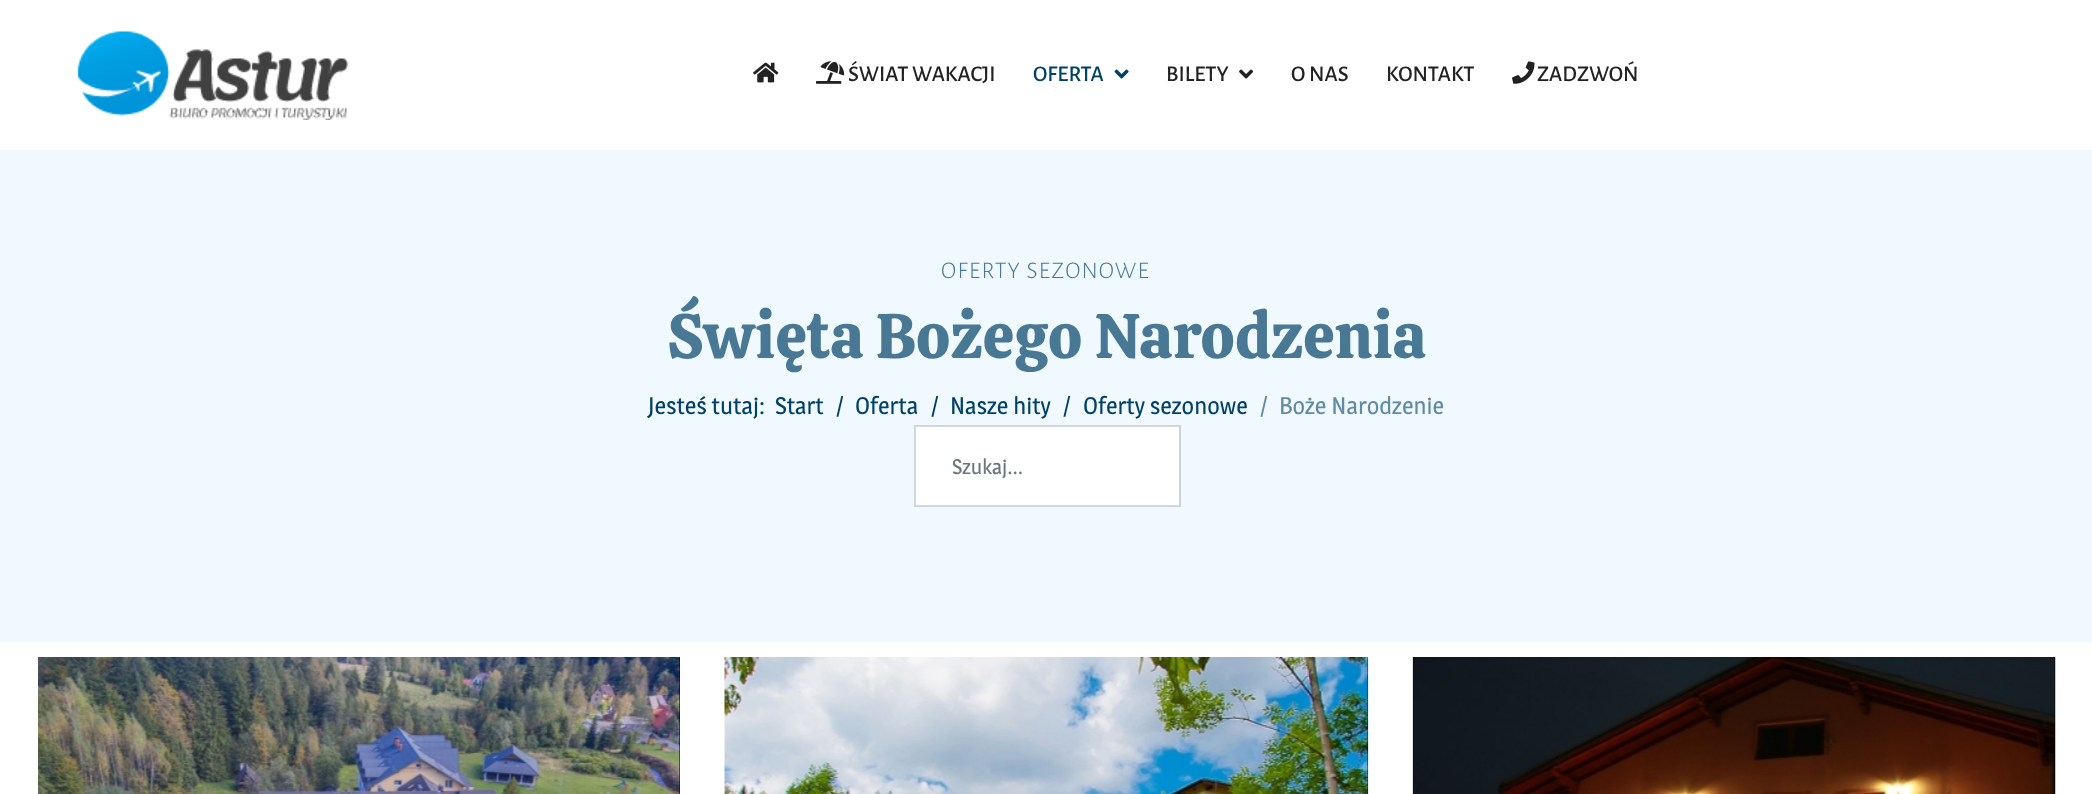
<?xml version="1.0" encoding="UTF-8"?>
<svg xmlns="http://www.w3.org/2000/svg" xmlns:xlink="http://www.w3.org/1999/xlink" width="2092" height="794">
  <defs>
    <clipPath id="clip1"><rect x="953" y="453" width="189" height="26" /></clipPath>
  </defs>
  <rect width="100%" height="100%" fill="#ffffff" />
  <image x="77" y="31" width="272" height="89" xlink:href="image1.png" />
  <image x="753" y="62" width="26" height="21" xlink:href="image2.png" />
  <image x="816" y="61" width="29" height="23" xlink:href="image3.png" />
  <image x="1114" y="69" width="15" height="10" xlink:href="image4.png" />
  <image x="1239" y="69" width="15" height="10" xlink:href="image5.png" />
  <image x="1512" y="61" width="23" height="23" xlink:href="image6.png" />
  <rect y="150" width="2092" height="492" fill="#f0f9ff" />
  <rect x="915" y="426" width="264" height="80" fill="#ffffff" />
  <rect x="915" y="426" width="265" height="80" fill="none" stroke="#000000" stroke-opacity="0.15" stroke-width="2" />
  <rect x="679" y="657" width="1" height="137" fill="#000000" />
  <image x="38" y="657" width="642" height="137" xlink:href="image7.png" />
  <rect x="1367" y="657" width="1" height="137" fill="#000000" />
  <image x="724" y="657" width="645" height="137" xlink:href="image8.png" />
  <rect x="1413" y="657" width="642" height="137" fill="#000000" />
  <image x="1412" y="657" width="644" height="137" xlink:href="image9.png" />
  <text x="848" y="81" style="font-family: Alegreya Sans SC; font-size: 22.5px; font-weight: 500; fill: #222222">ŚWIAT WAKACJI</text>
  <text x="1033" y="81" style="font-family: Alegreya Sans SC; font-size: 22.5px; font-weight: 500; fill: #014166">OFERTA</text>
  <text x="1166" y="81" style="font-family: Alegreya Sans SC; font-size: 22.5px; font-weight: 500; fill: #222222">BILETY</text>
  <text x="1291" y="81" style="font-family: Alegreya Sans SC; font-size: 22.5px; font-weight: 500; fill: #222222">O NAS</text>
  <text x="1386" y="81" style="font-family: Alegreya Sans SC; font-size: 22.5px; font-weight: 500; fill: #222222">KONTAKT</text>
  <text x="1537" y="81" style="font-family: Alegreya Sans SC; font-size: 22.5px; font-weight: 500; fill: #222222">ZADZWOŃ</text>
  <text x="941" y="278" style="font-family: Alegreya Sans SC; font-size: 24px; font-weight: 300; letter-spacing: 1.3px; fill: #497894">OFERTY SEZONOWE</text>
  <text x="667" y="358" style="font-family: Calistoga; font-size: 63px; fill: #497894">Święta Bożego Narodzenia</text>
  <text x="648" y="414" style="font-family: Magra; font-size: 24px; fill: #014166">Jesteś tutaj:</text>
  <text x="775" y="414" style="font-family: Magra; font-size: 24px; fill: #014166">Start</text>
  <text x="836" y="414" style="font-family: Magra; font-size: 24px; fill: #014166">/</text>
  <text x="855" y="414" style="font-family: Magra; font-size: 24px; fill: #014166">Oferta</text>
  <text x="931" y="414" style="font-family: Magra; font-size: 24px; fill: #014166">/</text>
  <text x="950" y="414" style="font-family: Magra; font-size: 24px; fill: #014166">Nasze hity</text>
  <text x="1063" y="414" style="font-family: Magra; font-size: 24px; fill: #014166">/</text>
  <text x="1083" y="414" style="font-family: Magra; font-size: 24px; fill: #014166">Oferty sezonowe</text>
  <text x="1260" y="414" style="font-family: Magra; font-size: 24px; fill: #618ba3">/</text>
  <text x="1279" y="414" style="font-family: Magra; font-size: 24px; fill: #618ba3">Boże Narodzenie</text>
  <g clip-path="url(#clip1)">
    <text x="952" y="474" style="font-family: Magra; font-size: 21px; fill: #6c757d">Szukaj...</text>
  </g>
</svg>
